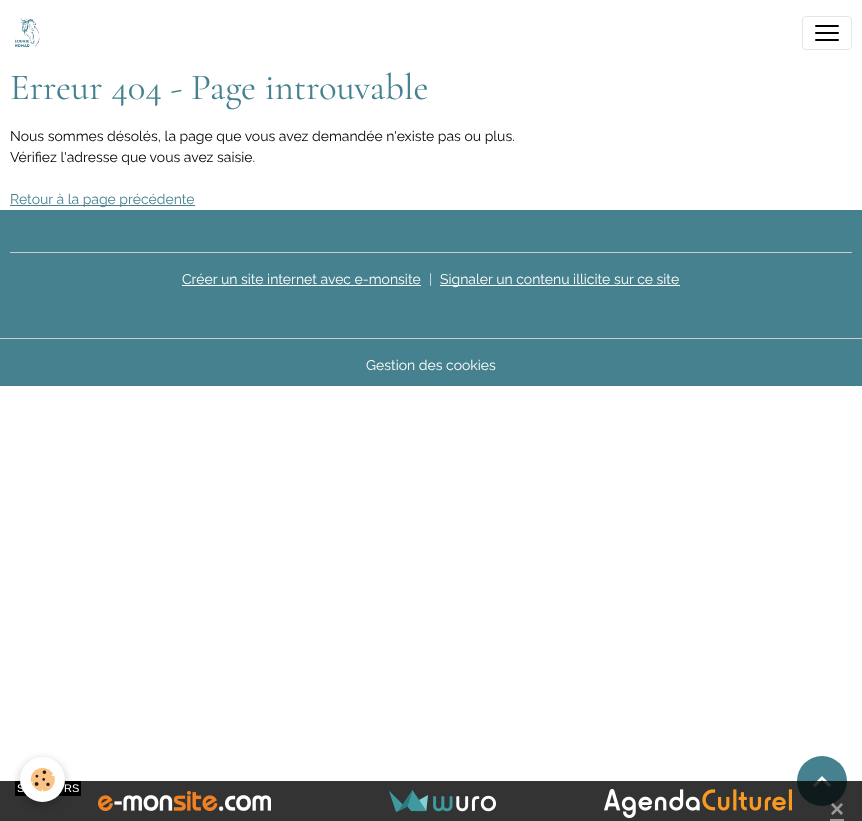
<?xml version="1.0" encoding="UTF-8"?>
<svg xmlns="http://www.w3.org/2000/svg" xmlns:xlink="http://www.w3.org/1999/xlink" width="862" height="821">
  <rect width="100%" height="100%" fill="#ffffff" />
  <image x="15" y="18" width="25" height="30" xlink:href="image1.png" />
  <rect x="802.5" y="16.5" width="49" height="33" rx="3.5" fill="none" stroke="#e6e6e6" />
  <rect x="815" y="25" width="24" height="2" rx="1" fill="#000000" />
  <rect x="815" y="32" width="24" height="2" rx="1" fill="#000000" />
  <rect x="815" y="39" width="24" height="2" rx="1" fill="#000000" />
  <rect x="10" y="205" width="185" height="1" fill="#45818e" />
  <rect y="210" width="862" height="176" fill="#45818e" />
  <rect x="10" y="252" width="842" height="1" fill="#cccccc" />
  <rect x="182" y="285" width="239" height="1" fill="#ffffff" />
  <rect x="440" y="285" width="240" height="1" fill="#ffffff" />
  <rect y="338" width="862" height="1" fill="#cccccc" />
  <circle cx="822" cy="781" r="25" fill="#45818e" />
  <path d="M 822 776 l 9 9 l -2 2 l -7 -7 l -7 7 l -2 -2 z" fill="#ffffff" />
  <rect y="781" width="862" height="40" fill="#000000" fill-opacity="0.8" />
  <rect x="15" y="781" width="66" height="15" fill="#000000" />
  <rect x="20" y="760" width="45" height="45" rx="22.5" fill="#000000" fill-opacity="0.24" filter="blur(5px)" />
  <circle cx="42.5" cy="779.5" r="22.5" fill="#ffffff" />
  <image x="30" y="767" width="25" height="25" xlink:href="image2.png" />
  <image x="98" y="791" width="173" height="20" xlink:href="image3.png" />
  <image x="389" y="790" width="107" height="22" xlink:href="image4.png" />
  <image x="604" y="789" width="188" height="29" xlink:href="image5.png" />
  <rect x="830" y="819" width="14" height="2" fill="#999999" />
  <text x="10" y="99" style="font-family: Cormorant Garamond; font-size: 36.75px; font-weight: 300; fill: #45818e">Erreur 404 - Page introuvable</text>
  <text x="10" y="141" style="font-family: Raleway; font-size: 14px; font-weight: 100; fill: #000000">Nous sommes désolés, la page que vous avez demandée n'existe pas ou plus.</text>
  <text x="10" y="162" style="font-family: Raleway; font-size: 14px; font-weight: 100; fill: #000000">Vérifiez l'adresse que vous avez saisie.</text>
  <text x="10" y="204" style="font-family: Raleway; font-size: 14px; font-weight: 100; fill: #45818e">Retour à la page précédente</text>
  <text x="182" y="284" style="font-family: Raleway; font-size: 14px; font-weight: 100; fill: #ffffff">Créer un site internet avec e-monsite</text>
  <text x="429" y="284" style="font-family: Raleway; font-size: 14px; font-weight: 100; fill: #dae6e8">|</text>
  <text x="440" y="284" style="font-family: Raleway; font-size: 14px; font-weight: 100; fill: #ffffff">Signaler un contenu illicite sur ce site</text>
  <text x="366" y="370" style="font-family: Raleway; font-size: 14px; font-weight: 100; fill: #ffffff">Gestion des cookies</text>
  <text x="17" y="792" style="font-family: Liberation Sans; font-size: 11px; fill: #ffffff">S</text>
  <text x="64" y="792" style="font-family: Liberation Sans; font-size: 11px; fill: #ffffff">RS</text>
  <text x="830" y="817" style="font-family: Liberation Sans; font-size: 24px; font-weight: bold; fill: #999999">×</text>
</svg>
